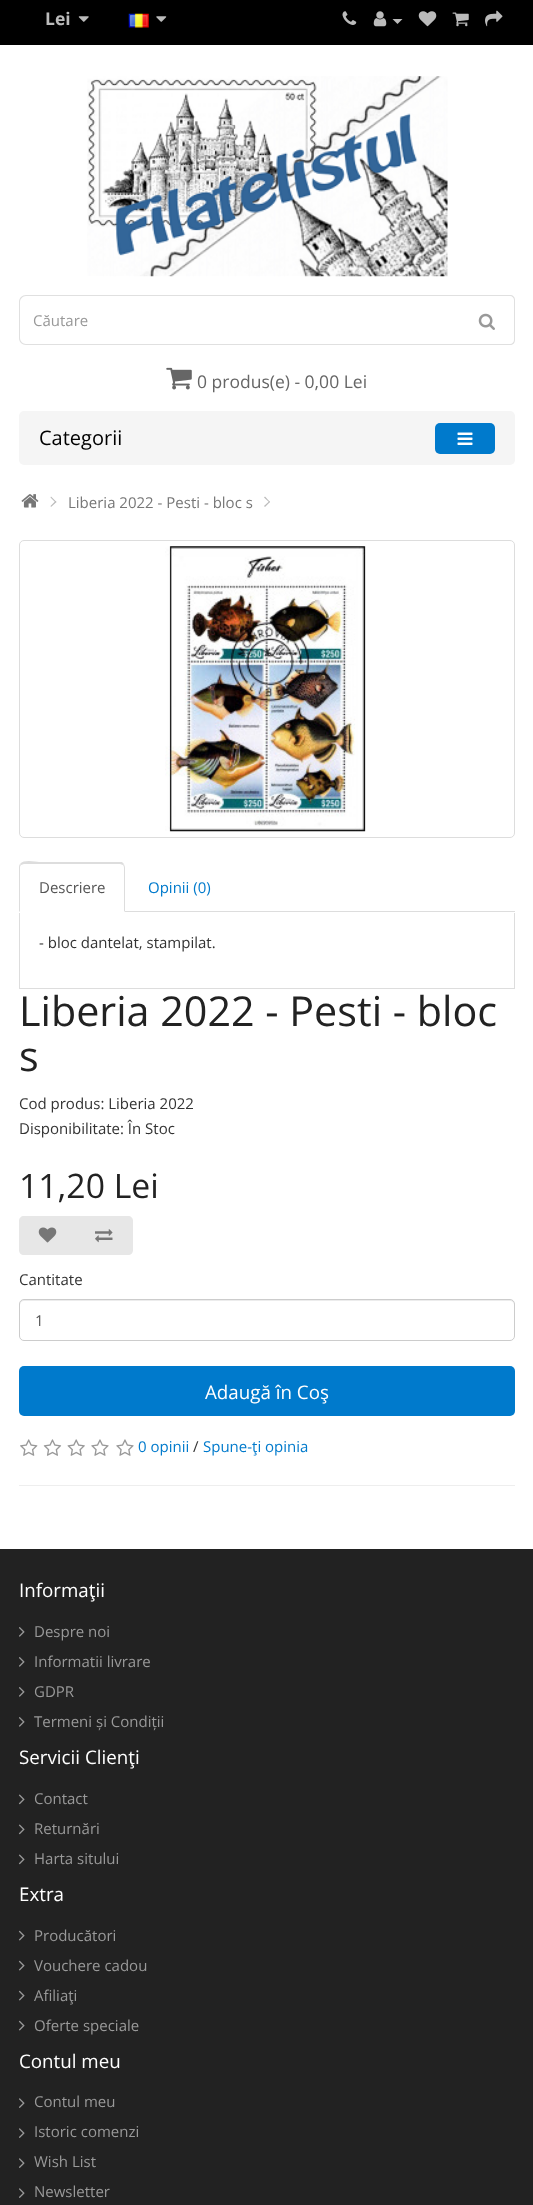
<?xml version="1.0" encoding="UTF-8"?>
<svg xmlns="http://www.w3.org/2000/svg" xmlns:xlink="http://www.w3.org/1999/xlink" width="533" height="2205">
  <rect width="100%" height="100%" fill="#ffffff" />
  <rect width="533" height="45" fill="#000000" />
  <image x="78" y="16" width="11" height="6" xlink:href="image1.png" />
  <image x="128" y="13" width="21" height="15" xlink:href="image2.png" />
  <image x="156" y="16" width="11" height="6" xlink:href="image3.png" />
  <image x="342" y="11" width="15" height="14" xlink:href="image4.png" />
  <image x="373" y="11" width="14" height="16" xlink:href="image5.png" />
  <path d="M 392.5 19 h 10 l -5 5 z" fill="#bbbbbb" />
  <image x="418" y="11" width="19" height="16" xlink:href="image6.png" />
  <image x="452" y="12" width="17" height="15" xlink:href="image7.png" />
  <image x="485" y="10" width="18" height="17" xlink:href="image8.png" />
  <image x="87" y="76" width="361" height="201" xlink:href="image9.png" />
  <path d="M 26 295 h 435 v 50 h -435 c -4 0 -7 -3 -7 -7 v -36 c 0 -4 3 -7 7 -7 z m 0 1 h 435 v 48 h -435 c -3 0 -6 -3 -6 -6 v -36 c 0 -3 3 -6 6 -6 z" fill="#e0e0e0" fill-rule="evenodd" />
  <path d="M 460 295 h 50 c 3 0 5 2 5 5 v 40 c 0 3 -2 5 -5 5 h -50 z m 0 1 h 50 c 2 0 4 2 4 4 v 40 c 0 2 -2 4 -4 4 h -50 z" fill="#e0e0e0" fill-rule="evenodd" />
  <image x="478" y="313" width="17" height="17" xlink:href="image10.png" />
  <image x="166" y="367" width="26" height="23" xlink:href="image11.png" />
  <rect x="19" y="411" width="496" height="54" rx="5" fill="#f5f5f5" />
  <rect x="435" y="423" width="60" height="31" rx="5" fill="#007acc" />
  <image x="457" y="432" width="16" height="13" xlink:href="image12.png" />
  <image x="21" y="494" width="18" height="14" xlink:href="image13.png" />
  <path d="M 50.5 497.5 l 0.5 -1 l 5.5 5.5 l -1 0.5 z" fill="#bbbbbb" />
  <path d="M 50.5 506 l 5 -5 l 1 1 l -5.5 5 z" fill="#bbbbbb" />
  <path d="M 264 497.5 l 1 -1 l 5 5.5 l -0.5 0.5 z" fill="#bbbbbb" />
  <path d="M 264 506 l 5.5 -5 l 0.5 1 l -5 5 z" fill="#bbbbbb" />
  <rect x="19.5" y="540.5" width="495" height="297" rx="4.5" fill="none" stroke="#dddddd" />
  <image x="165" y="546" width="201" height="286" xlink:href="image14.png" />
  <rect x="125" y="911" width="390" height="1" fill="#dddddd" />
  <path d="M 24 864 l -3 1 l -1 -1 c 4 -5 16 -2 19 -2 h 83 l 2 2 l -1 1 l -3 -1 z" fill="#dddddd" />
  <path d="M 125 912 v -44 c 0 -2 -1 -3 -1 -4 l -1 1 c 0 0 1 1 1 3 v 43 z" fill="#dddddd" />
  <path d="M 19 912 v -44 c 0 -1 0 -3 1 -4 l 1 1 c -1 1 -1 2 -1 3 v 43 z" fill="#dddddd" />
  <rect x="514" y="913" width="1" height="76" fill="#dddddd" />
  <rect x="19" y="988" width="496" height="1" fill="#dddddd" />
  <rect x="19" y="913" width="1" height="76" fill="#dddddd" />
  <path d="M 24 1216 h 52 v 39 h -52 c -3 0 -5 -2 -5 -5 v -29 c 0 -3 2 -5 5 -5 z" fill="#e7e7e7" />
  <image x="38" y="1227" width="19" height="16" xlink:href="image15.png" />
  <path d="M 75 1216 h 53 c 3 0 5 2 5 5 v 29 c 0 3 -2 5 -5 5 h -53 z" fill="#e7e7e7" />
  <image x="95" y="1229" width="18" height="14" xlink:href="image16.png" />
  <path d="M 24 1301 h 486 c 2 0 4 2 4 4 c 0 -3 -1 -5 -4 -5 h -486 c -3 0 -4 2 -4 5 c 0 -2 2 -4 4 -4 z" fill="#ececec" />
  <rect x="19.5" y="1299.5" width="495" height="41" rx="4.5" fill="none" stroke="#cccccc" />
  <rect x="19" y="1366" width="496" height="50" rx="5" fill="#007acc" />
  <image x="20" y="1439" width="18" height="17" xlink:href="image17.png" />
  <image x="43" y="1439" width="19" height="17" xlink:href="image18.png" />
  <image x="67" y="1439" width="18" height="17" xlink:href="image19.png" />
  <image x="91" y="1439" width="18" height="17" xlink:href="image20.png" />
  <image x="116" y="1439" width="18" height="17" xlink:href="image20.png" />
  <rect x="19" y="1485" width="496" height="1" fill="#eeeeee" />
  <rect y="1549" width="533" height="656" fill="#222222" />
  <image x="19" y="1627" width="6" height="10" xlink:href="image21.png" />
  <image x="19" y="1657" width="6" height="10" xlink:href="image21.png" />
  <image x="19" y="1687" width="6" height="10" xlink:href="image21.png" />
  <image x="19" y="1717" width="6" height="10" xlink:href="image21.png" />
  <image x="18" y="1794" width="7" height="11" xlink:href="image22.png" />
  <image x="18" y="1824" width="7" height="11" xlink:href="image22.png" />
  <image x="18" y="1854" width="7" height="11" xlink:href="image22.png" />
  <image x="18" y="1930" width="7" height="11" xlink:href="image23.png" />
  <image x="18" y="1960" width="7" height="11" xlink:href="image23.png" />
  <image x="18" y="1990" width="7" height="11" xlink:href="image23.png" />
  <image x="18" y="2020" width="7" height="11" xlink:href="image23.png" />
  <image x="19" y="2098" width="6" height="10" xlink:href="image24.png" />
  <image x="19" y="2128" width="6" height="10" xlink:href="image24.png" />
  <image x="19" y="2158" width="6" height="10" xlink:href="image24.png" />
  <image x="19" y="2188" width="6" height="10" xlink:href="image24.png" />
  <text x="45" y="25" style="font-family: Open Sans; font-size: 17.5px; font-weight: bold; fill: #bbbbbb">Lei</text>
  <text x="33" y="326" style="font-family: Open Sans; font-size: 15px; fill: #999999">Căutare</text>
  <text x="197" y="388" style="font-family: Open Sans; font-size: 17.5px; fill: #666666">0 produs(e) - 0,00 Lei</text>
  <text x="39" y="445" style="font-family: Open Sans; font-size: 20px; fill: #000000">Categorii</text>
  <text x="68" y="508" style="font-family: Open Sans; font-size: 15px; fill: #777777">Liberia 2022 - Pesti - bloc s</text>
  <text x="39" y="893" style="font-family: Open Sans; font-size: 15px; fill: #555555">Descriere</text>
  <text x="148" y="893" style="font-family: Open Sans; font-size: 15px; fill: #007acc">Opinii (0)</text>
  <text x="39" y="948" style="font-family: Open Sans; font-size: 15px; fill: #333333">- bloc dantelat, stampilat.</text>
  <text x="19" y="1026" style="font-family: Open Sans; font-size: 41.25px; fill: #222222">Liberia 2022 - Pesti - bloc</text>
  <text x="19" y="1071" style="font-family: Open Sans; font-size: 41.25px; fill: #222222">s</text>
  <text x="19" y="1109" style="font-family: Open Sans; font-size: 15px; fill: #333333">Cod produs: Liberia 2022</text>
  <text x="19" y="1134" style="font-family: Open Sans; font-size: 15px; fill: #333333">Disponibilitate: În Stoc</text>
  <text x="19" y="1198" style="font-family: Open Sans; font-size: 33.75px; fill: #222222">11,20 Lei</text>
  <text x="19" y="1285" style="font-family: Open Sans; font-size: 15px; fill: #333333">Cantitate</text>
  <text x="35" y="1326" style="font-family: Open Sans; font-size: 15px; fill: #555555">1</text>
  <text x="205" y="1399" style="font-family: Open Sans; font-size: 18.75px; fill: #ffffff">Adaugă în Coş</text>
  <text x="138" y="1452" style="font-family: Open Sans; font-size: 15px; fill: #007acc">0 opinii</text>
  <text x="193" y="1452" style="font-family: Open Sans; font-size: 15px; fill: #333333">/</text>
  <text x="203" y="1452" style="font-family: Open Sans; font-size: 15px; fill: #007acc">Spune-ţi opinia</text>
  <text x="19" y="1597" style="font-family: Open Sans; font-size: 18.75px; fill: #ffffff">Informaţii</text>
  <text x="34" y="1637" style="font-family: Open Sans; font-size: 15px; fill: #999999">Despre noi</text>
  <text x="34" y="1667" style="font-family: Open Sans; font-size: 15px; fill: #999999">Informatii livrare</text>
  <text x="34" y="1697" style="font-family: Open Sans; font-size: 15px; fill: #999999">GDPR</text>
  <text x="34" y="1727" style="font-family: Open Sans; font-size: 15px; fill: #999999">Termeni și Condiții</text>
  <text x="19" y="1764" style="font-family: Open Sans; font-size: 18.75px; fill: #ffffff">Servicii Clienţi</text>
  <text x="34" y="1804" style="font-family: Open Sans; font-size: 15px; fill: #999999">Contact</text>
  <text x="34" y="1834" style="font-family: Open Sans; font-size: 15px; fill: #999999">Returnări</text>
  <text x="34" y="1864" style="font-family: Open Sans; font-size: 15px; fill: #999999">Harta sitului</text>
  <text x="19" y="1901" style="font-family: Open Sans; font-size: 18.75px; fill: #ffffff">Extra</text>
  <text x="34" y="1941" style="font-family: Open Sans; font-size: 15px; fill: #999999">Producători</text>
  <text x="34" y="1971" style="font-family: Open Sans; font-size: 15px; fill: #999999">Vouchere cadou</text>
  <text x="34" y="2001" style="font-family: Open Sans; font-size: 15px; fill: #999999">Afiliaţi</text>
  <text x="34" y="2031" style="font-family: Open Sans; font-size: 15px; fill: #999999">Oferte speciale</text>
  <text x="19" y="2068" style="font-family: Open Sans; font-size: 18.75px; fill: #ffffff">Contul meu</text>
  <text x="34" y="2107" style="font-family: Open Sans; font-size: 15px; fill: #999999">Contul meu</text>
  <text x="34" y="2137" style="font-family: Open Sans; font-size: 15px; fill: #999999">Istoric comenzi</text>
  <text x="34" y="2167" style="font-family: Open Sans; font-size: 15px; fill: #999999">Wish List</text>
  <text x="34" y="2197" style="font-family: Open Sans; font-size: 15px; fill: #999999">Newsletter</text>
</svg>
